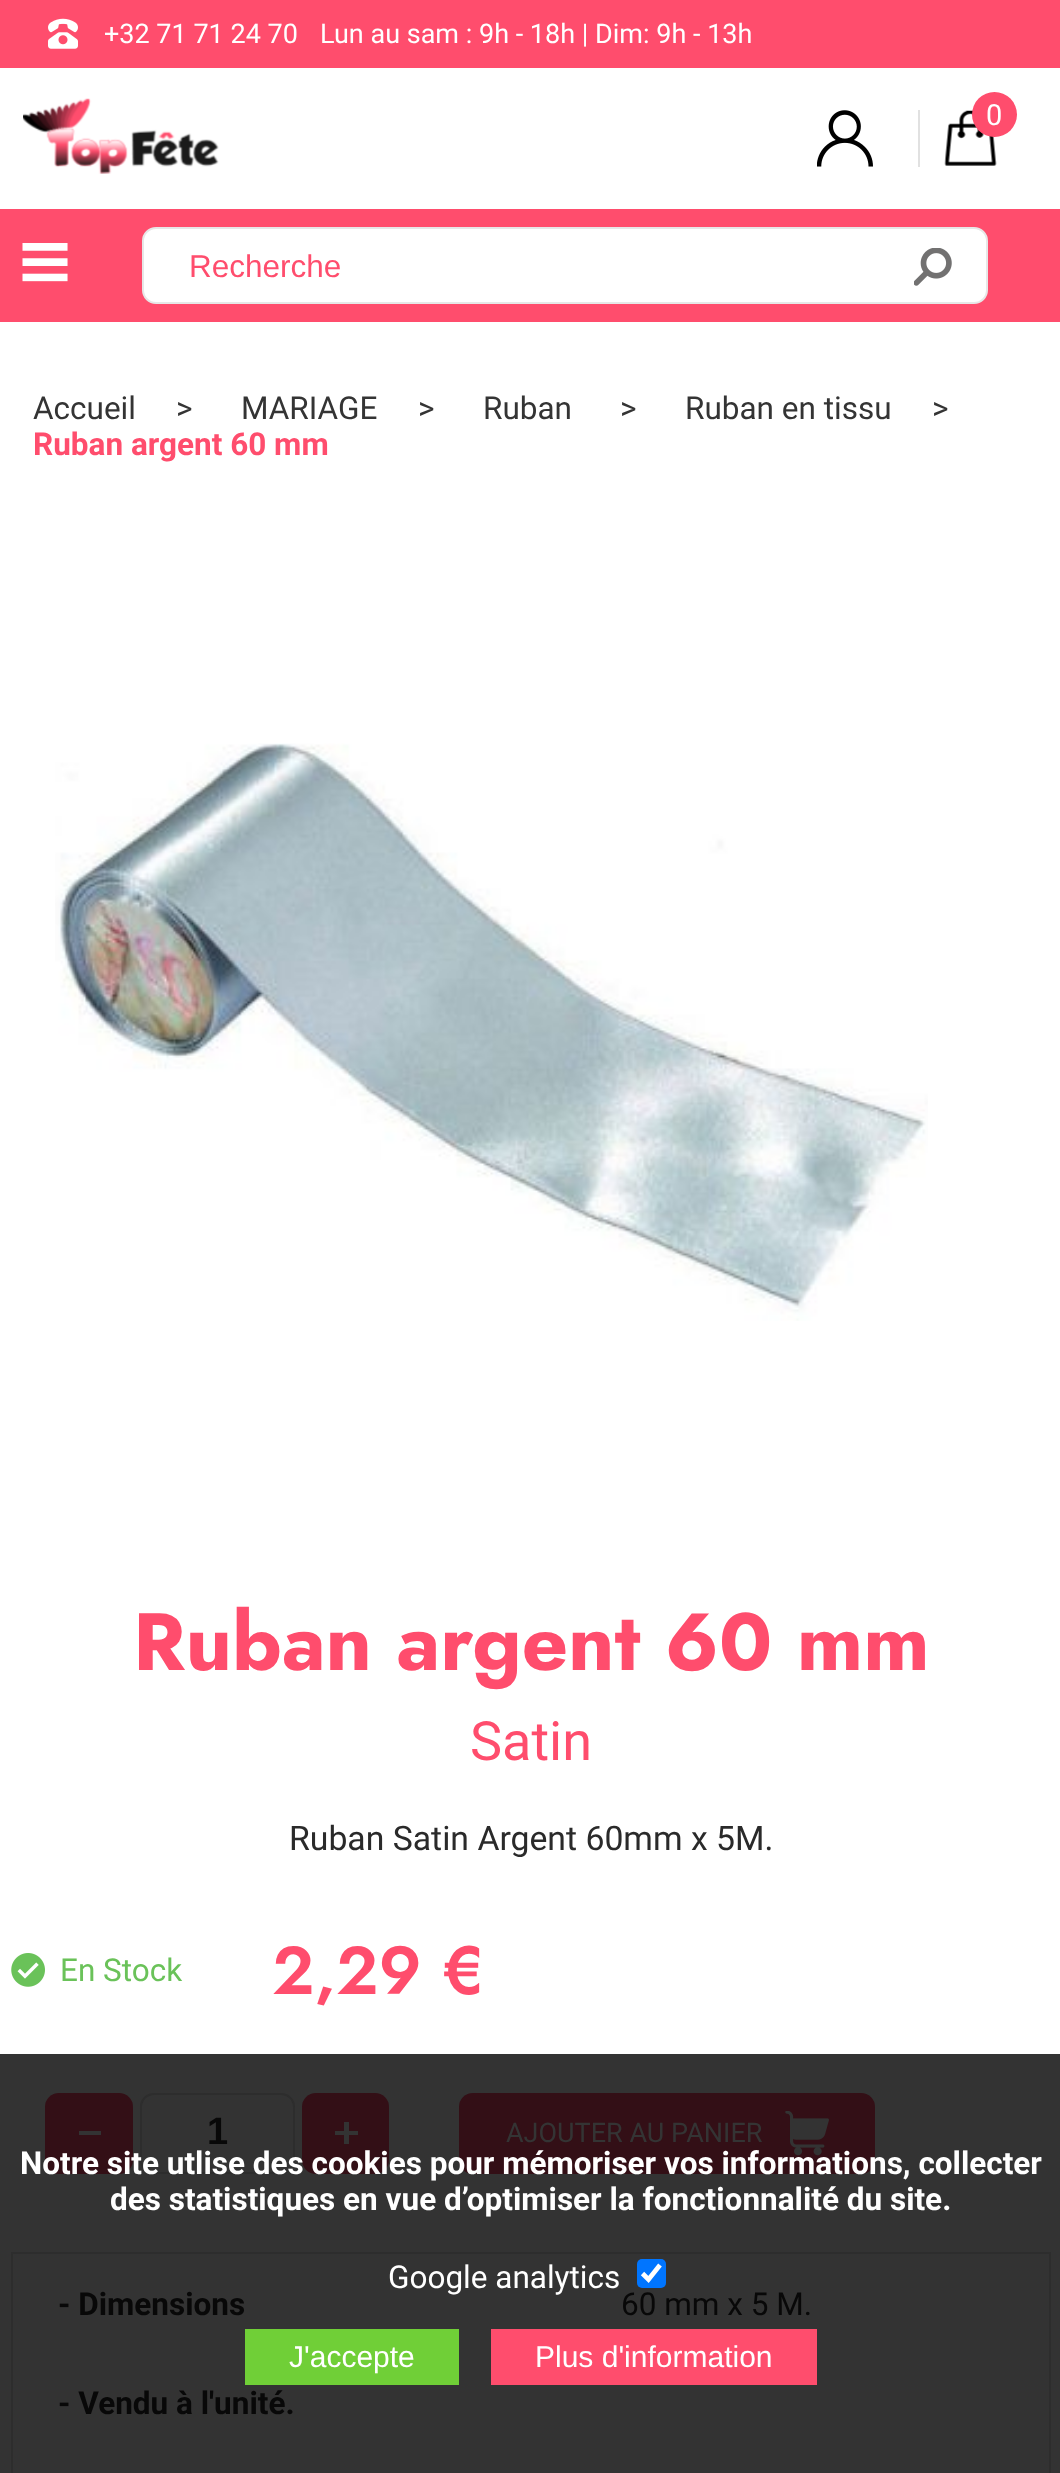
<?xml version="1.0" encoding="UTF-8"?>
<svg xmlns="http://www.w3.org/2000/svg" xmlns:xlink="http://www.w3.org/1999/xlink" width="1060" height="2473">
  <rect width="100%" height="100%" fill="#ffffff" />
  <rect y="2054" width="1060" height="419" fill="#333333" />
  <rect width="1060" height="68" fill="#ff4d6d" />
  <image x="48" y="18" width="30" height="31" xlink:href="image1.png" />
  <image x="23" y="98" width="196" height="76" xlink:href="image2.png" />
  <rect x="918" y="110" width="2" height="57" fill="#e1e1e1" />
  <image x="817" y="110" width="56" height="57" xlink:href="image3.png" />
  <image x="944" y="110" width="53" height="56" xlink:href="image4.png" />
  <circle cx="994.5" cy="114.5" r="22.5" fill="#ff4d6d" />
  <rect y="209" width="1060" height="113" fill="#ff4d6d" />
  <image x="22" y="243" width="46" height="39" xlink:href="image5.png" />
  <rect x="143" y="228" width="844" height="75" rx="13" fill="#ffffff" stroke="#e7e7e7" stroke-width="2" />
  <image x="914" y="248" width="38" height="38" xlink:href="image6.png" />
  <image x="55" y="743" width="873" height="578" xlink:href="image7.png" />
  <image x="11" y="1953" width="34" height="34" xlink:href="image8.png" />
  <rect x="45" y="2093" width="88" height="81" rx="14" fill="#330f16" />
  <rect x="79" y="2131" width="22" height="4" fill="#333333" />
  <rect x="141" y="2094" width="153" height="79" rx="13" fill="none" stroke="#2d2d2d" stroke-width="2" />
  <rect x="302" y="2093" width="87" height="81" rx="14" fill="#330f16" />
  <rect x="335" y="2131" width="23" height="4" fill="#333333" />
  <rect x="344" y="2122" width="5" height="22" fill="#333333" />
  <rect x="459" y="2093" width="416" height="81" rx="14" fill="#330f16" />
  <image x="785" y="2111" width="44" height="45" xlink:href="image9.png" />
  <rect x="11" y="2252" width="1040" height="2" fill="#2d2d2d" />
  <rect x="1049" y="2252" width="2" height="221" fill="#2d2d2d" />
  <rect x="11" y="2252" width="2" height="221" fill="#2d2d2d" />
  <rect x="637" y="2259" width="29" height="29" rx="5" fill="#0075ff" />
  <path d="M 642.5 2273.5 l 6 6 l 11.5 -14.5" fill="none" stroke="#ffffff" stroke-width="4.7" />
  <rect x="245" y="2329" width="214" height="56" fill="#70cf37" />
  <rect x="491" y="2329" width="326" height="56" fill="#ff4d6d" />
  <text x="104" y="43" style="font-family: Roboto; font-size: 27px; fill: #ffffff">+32 71 71 24 70</text>
  <text x="320" y="43" style="font-family: Roboto; font-size: 27px; fill: #ffffff">Lun au sam : 9h - 18h | Dim: 9h - 13h</text>
  <text x="986" y="125" style="font-family: Roboto; font-size: 29px; fill: #ffffff">0</text>
  <text x="189" y="277" style="font-family: Liberation Sans; font-size: 31.5px; fill: #ff4d6d">Recherche</text>
  <text x="33" y="419" style="font-family: Roboto; font-size: 31.5px; fill: #343434">Accueil</text>
  <text x="176" y="419" style="font-family: Roboto; font-size: 31.5px; fill: #343434">&gt;</text>
  <text x="241" y="419" style="font-family: Roboto; font-size: 31.5px; fill: #343434">MARIAGE</text>
  <text x="418" y="419" style="font-family: Roboto; font-size: 31.5px; fill: #343434">&gt;</text>
  <text x="483" y="419" style="font-family: Roboto; font-size: 31.5px; fill: #343434">Ruban</text>
  <text x="620" y="419" style="font-family: Roboto; font-size: 31.5px; fill: #343434">&gt;</text>
  <text x="685" y="419" style="font-family: Roboto; font-size: 31.5px; fill: #343434">Ruban en tissu</text>
  <text x="932" y="419" style="font-family: Roboto; font-size: 31.5px; fill: #343434">&gt;</text>
  <text x="33" y="455" style="font-family: Roboto; font-size: 31.5px; font-weight: bold; fill: #ff4d6d">Ruban argent 60 mm</text>
  <text x="133" y="1670" style="font-family: Jost; font-size: 81px; font-weight: bold; fill: #ff4d6d">Ruban argent 60 mm</text>
  <text x="470" y="1760" style="font-family: Roboto; font-size: 54px; fill: #ff4d6d">Satin</text>
  <text x="289" y="1850" style="font-family: Roboto; font-size: 33.75px; fill: #2a2a2a">Ruban Satin Argent 60mm x 5M.</text>
  <text x="60" y="1981" style="font-family: Roboto; font-size: 31.5px; fill: #6ac259">En Stock</text>
  <text x="272" y="1994" style="font-family: Jost; font-size: 67.5px; font-weight: 600; fill: #ff4d6d">2,29 €</text>
  <text x="207" y="2144" style="font-family: Liberation Sans; font-size: 38px; font-weight: bold; fill: #080808">1</text>
  <text x="506" y="2142" style="font-family: Roboto; font-size: 27px; fill: #343434">AJOUTER AU PANIER</text>
  <text x="58" y="2315" style="font-family: Roboto; font-size: 31.5px; font-weight: bold; fill: #080808">- Dimensions</text>
  <text x="621" y="2315" style="font-family: Roboto; font-size: 31.5px; fill: #080808">60 mm x 5 M.</text>
  <text x="58" y="2414" style="font-family: Roboto; font-size: 31.5px; font-weight: bold; fill: #080808">- Vendu à l'unité.</text>
  <text x="20" y="2174" style="font-family: Roboto; font-size: 31.5px; font-weight: bold; fill: #ffffff">Notre site utlise des cookies pour mémoriser vos informations, collecter</text>
  <text x="110" y="2210" style="font-family: Roboto; font-size: 31.5px; font-weight: bold; fill: #ffffff">des statistiques en vue d’optimiser la fonctionnalité du site.</text>
  <text x="388" y="2288" style="font-family: Roboto; font-size: 31.5px; fill: #ffffff">Google analytics</text>
  <text x="289" y="2367" style="font-family: Liberation Sans; font-size: 30px; fill: #ffffff">J'accepte</text>
  <text x="535" y="2367" style="font-family: Liberation Sans; font-size: 30px; fill: #ffffff">Plus d'information</text>
</svg>
